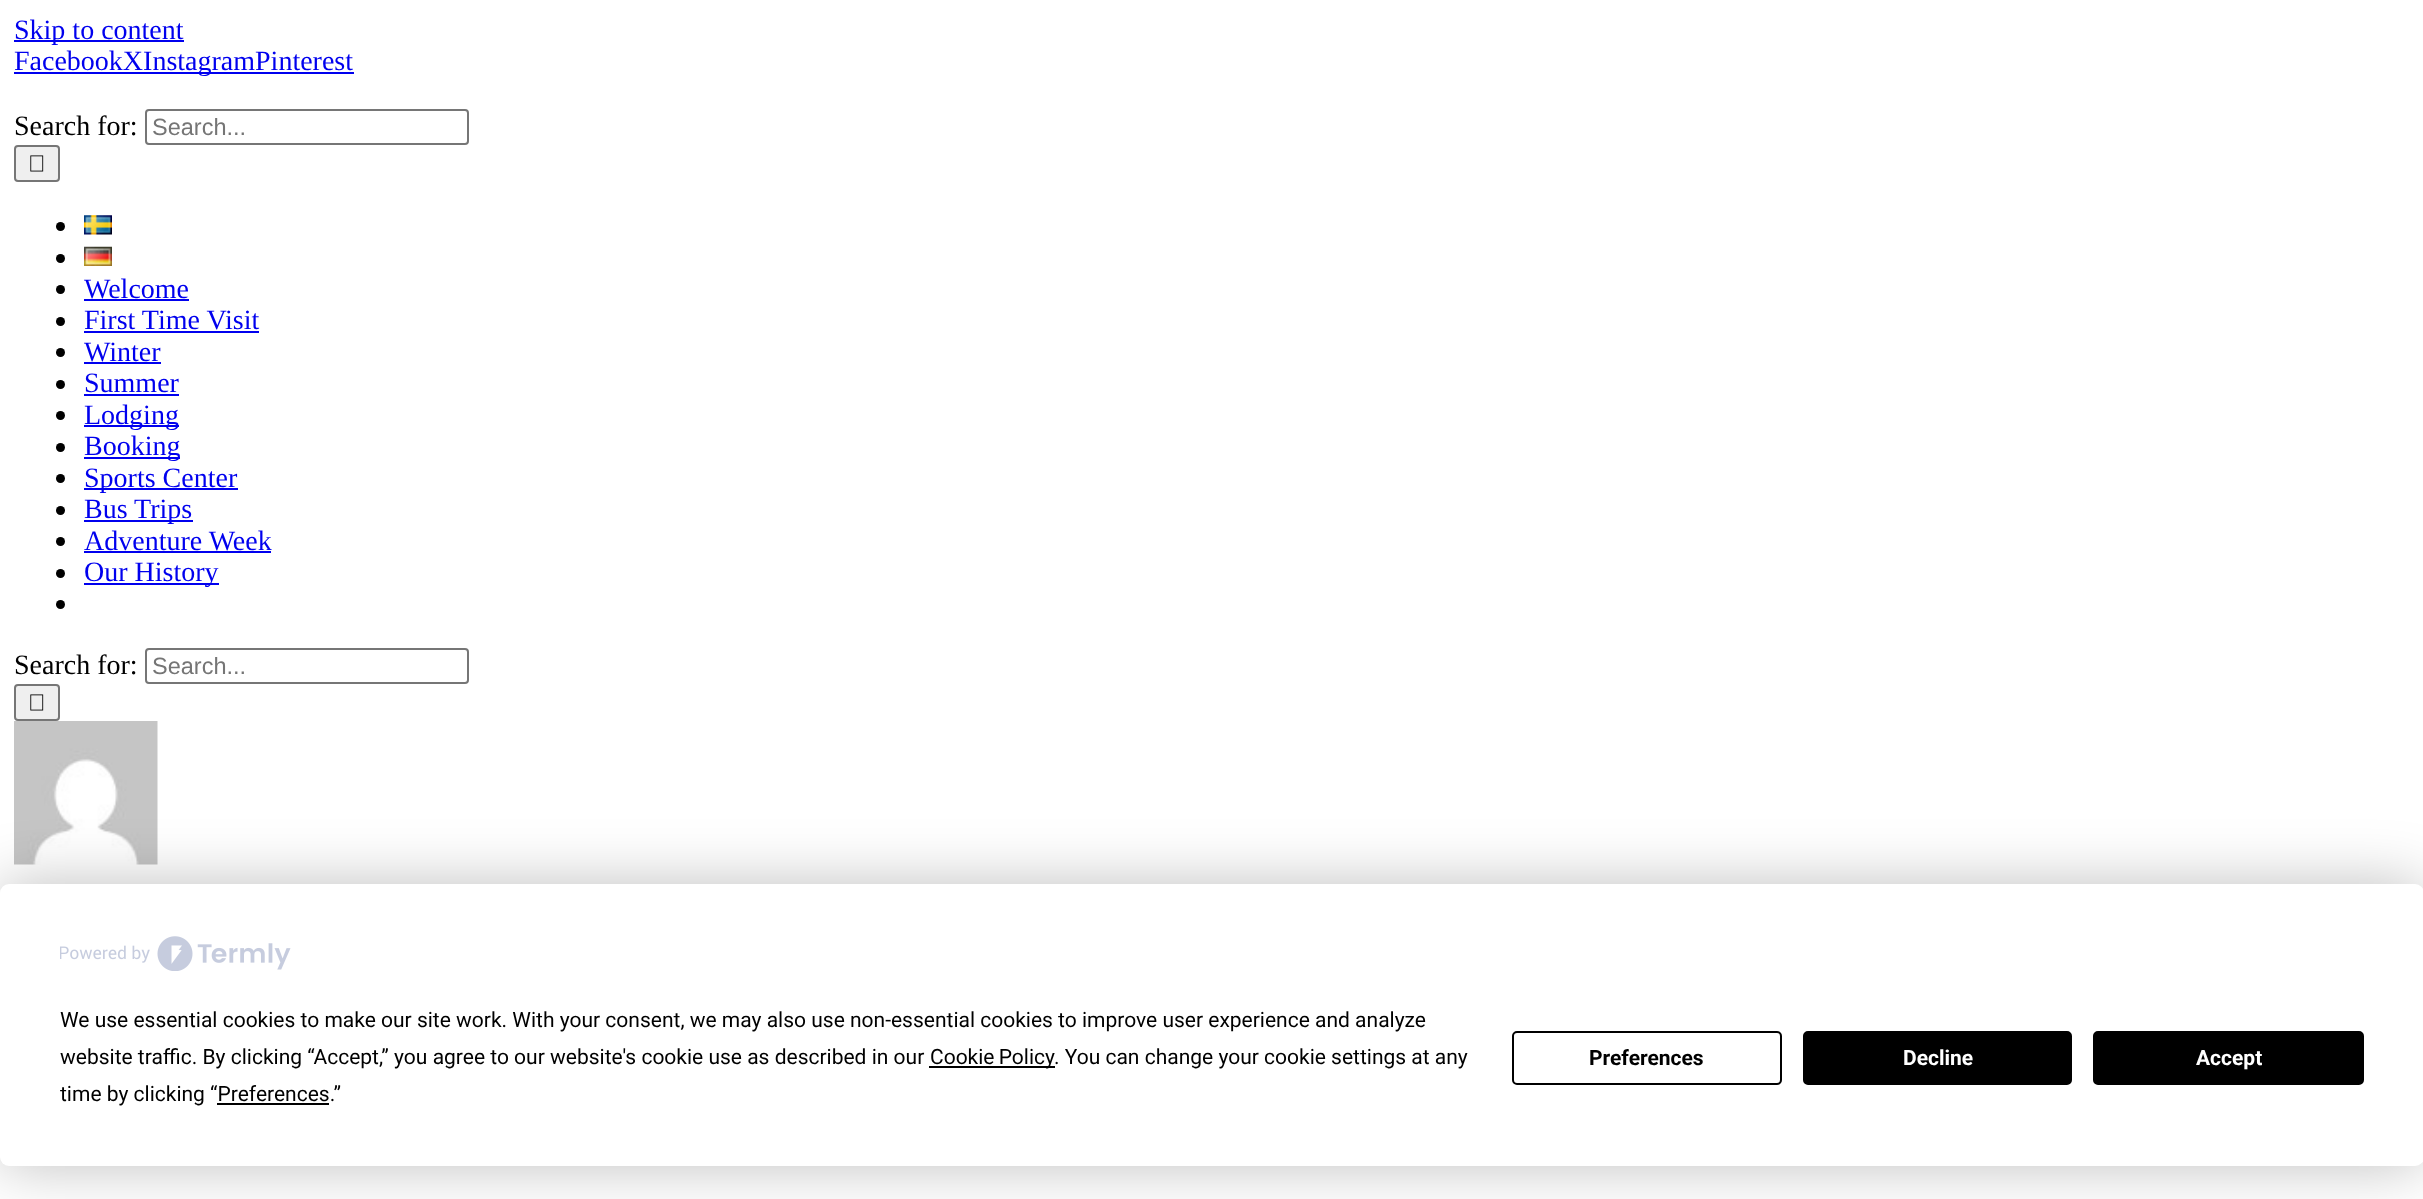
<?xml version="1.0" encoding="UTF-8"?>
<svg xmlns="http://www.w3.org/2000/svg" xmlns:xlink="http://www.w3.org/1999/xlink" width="2423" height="1199">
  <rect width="100%" height="100%" fill="#ffffff" />
  <rect x="14" y="40" width="170" height="2" fill="#0000ee" />
  <rect x="14" y="72" width="340" height="2" fill="#0000ee" />
  <rect x="146" y="110" width="322" height="34" rx="3" fill="none" stroke="#767676" stroke-width="2" />
  <rect x="15" y="146" width="44" height="35" rx="3" fill="#efefef" stroke="#767676" stroke-width="2" />
  <image x="30" y="155" width="14" height="17" xlink:href="image1.png" />
  <circle cx="60.5" cy="226.5" r="4.5" fill="#000000" />
  <image x="84" y="215" width="28" height="20" xlink:href="image2.png" />
  <circle cx="60.5" cy="258.5" r="4.5" fill="#000000" />
  <image x="84" y="246" width="28" height="20" xlink:href="image3.png" />
  <circle cx="60.5" cy="289.5" r="4.5" fill="#000000" />
  <rect x="84" y="299" width="105" height="2" fill="#0000ee" />
  <circle cx="60.5" cy="321.5" r="4.5" fill="#000000" />
  <rect x="84" y="331" width="175" height="2" fill="#0000ee" />
  <circle cx="60.5" cy="352.5" r="4.5" fill="#000000" />
  <rect x="84" y="362" width="77" height="2" fill="#0000ee" />
  <circle cx="60.5" cy="384.5" r="4.5" fill="#000000" />
  <rect x="84" y="394" width="95" height="2" fill="#0000ee" />
  <circle cx="60.5" cy="415.5" r="4.5" fill="#000000" />
  <rect x="84" y="425" width="95" height="2" fill="#0000ee" />
  <circle cx="60.5" cy="447.5" r="4.5" fill="#000000" />
  <rect x="84" y="457" width="96" height="2" fill="#0000ee" />
  <circle cx="60.5" cy="478.5" r="4.5" fill="#000000" />
  <rect x="84" y="488" width="154" height="2" fill="#0000ee" />
  <circle cx="60.5" cy="510.5" r="4.5" fill="#000000" />
  <rect x="84" y="520" width="109" height="2" fill="#0000ee" />
  <circle cx="60.5" cy="541.5" r="4.5" fill="#000000" />
  <rect x="84" y="551" width="187" height="2" fill="#0000ee" />
  <circle cx="60.5" cy="573.5" r="4.5" fill="#000000" />
  <rect x="84" y="583" width="135" height="2" fill="#0000ee" />
  <circle cx="60.5" cy="604.5" r="4.5" fill="#000000" />
  <rect x="146" y="649" width="322" height="34" rx="3" fill="none" stroke="#767676" stroke-width="2" />
  <rect x="15" y="685" width="44" height="35" rx="3" fill="#efefef" stroke="#767676" stroke-width="2" />
  <image x="30" y="694" width="14" height="17" xlink:href="image1.png" />
  <image x="14" y="721" width="144" height="144" xlink:href="image4.png" />
  <rect y="884" width="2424" height="282" rx="9" fill="#000000" fill-opacity="0.25" filter="blur(30.5px)" />
  <rect y="884" width="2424" height="282" rx="9" fill="#ffffff" />
  <image x="60" y="936" width="231" height="35" xlink:href="image5.png" />
  <rect x="929" y="1066" width="126" height="2" fill="#000000" />
  <rect x="217" y="1103" width="112" height="2" fill="#000000" />
  <rect x="1513" y="1032" width="268" height="52" rx="4" fill="none" stroke="#000000" stroke-width="2" />
  <rect x="1804" y="1032" width="267" height="52" rx="4" fill="#000000" stroke="#000000" stroke-width="2" />
  <rect x="2094" y="1032" width="269" height="52" rx="4" fill="#000000" stroke="#000000" stroke-width="2" />
  <text x="14" y="39" style="font-family: Liberation Serif; font-size: 28px; fill: #0000ee">Skip to content</text>
  <text x="14" y="70" style="font-family: Liberation Serif; font-size: 28px; fill: #0000ee">FacebookXInstagramPinterest</text>
  <text x="14" y="135" style="font-family: Liberation Serif; font-size: 28px; fill: #000000">Search for:</text>
  <text x="152" y="135" style="font-family: Liberation Sans; font-size: 23.5px; fill: #757575">Search...</text>
  <text x="84" y="298" style="font-family: Liberation Serif; font-size: 28px; fill: #0000ee">Welcome</text>
  <text x="84" y="329" style="font-family: Liberation Serif; font-size: 28px; fill: #0000ee">First Time Visit</text>
  <text x="84" y="361" style="font-family: Liberation Serif; font-size: 28px; fill: #0000ee">Winter</text>
  <text x="84" y="392" style="font-family: Liberation Serif; font-size: 28px; fill: #0000ee">Summer</text>
  <text x="84" y="424" style="font-family: Liberation Serif; font-size: 28px; fill: #0000ee">Lodging</text>
  <text x="84" y="455" style="font-family: Liberation Serif; font-size: 28px; fill: #0000ee">Booking</text>
  <text x="84" y="487" style="font-family: Liberation Serif; font-size: 28px; fill: #0000ee">Sports Center</text>
  <text x="84" y="518" style="font-family: Liberation Serif; font-size: 28px; fill: #0000ee">Bus Trips</text>
  <text x="84" y="550" style="font-family: Liberation Serif; font-size: 28px; fill: #0000ee">Adventure Week</text>
  <text x="84" y="581" style="font-family: Liberation Serif; font-size: 28px; fill: #0000ee">Our History</text>
  <text x="14" y="674" style="font-family: Liberation Serif; font-size: 28px; fill: #000000">Search for:</text>
  <text x="152" y="674" style="font-family: Liberation Sans; font-size: 23.5px; fill: #757575">Search...</text>
  <text x="60" y="1027" style="font-family: Roboto; font-size: 21px; fill: #000000">We use essential cookies to make our site work. With your consent, we may also use non-essential cookies to improve user experience and analyze</text>
  <text x="60" y="1064" style="font-family: Roboto; font-size: 21px; fill: #000000">website traffic. By clicking “Accept,” you agree to our website's cookie use as described in our</text>
  <text x="930" y="1064" word-spacing="-1" style="font-family: Roboto; font-size: 21px; fill: #000000">Cookie Policy</text>
  <text x="1054" y="1064" style="font-family: Roboto; font-size: 21px; fill: #000000">. You can change your cookie settings at any</text>
  <text x="60" y="1101" style="font-family: Roboto; font-size: 21px; fill: #000000">time by clicking “Preferences.”</text>
  <text x="1589" y="1065" style="font-family: Roboto; font-size: 21px; font-weight: bold; fill: #000000">Preferences</text>
  <text x="1903" y="1065" style="font-family: Roboto; font-size: 21px; font-weight: bold; fill: #ffffff">Decline</text>
  <text x="2196" y="1065" style="font-family: Roboto; font-size: 21px; font-weight: bold; fill: #ffffff">Accept</text>
</svg>
